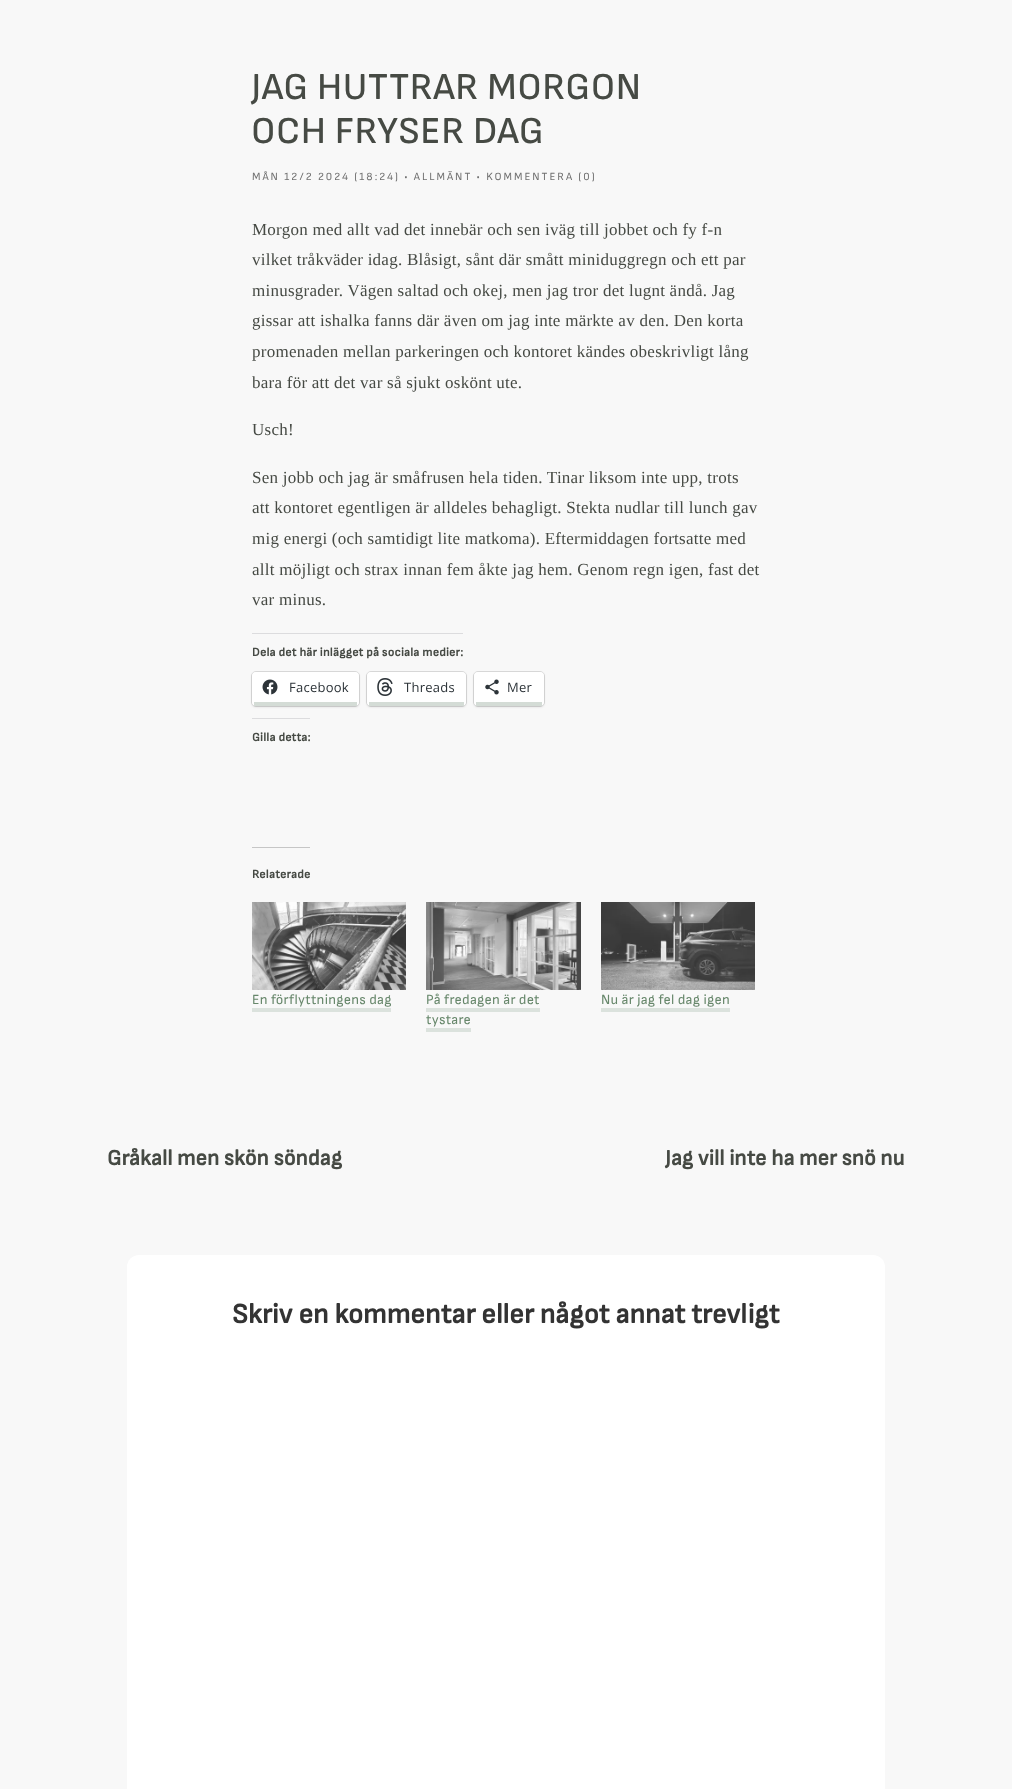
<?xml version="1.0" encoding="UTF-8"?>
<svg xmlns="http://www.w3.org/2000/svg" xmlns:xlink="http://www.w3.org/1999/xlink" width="1012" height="1789">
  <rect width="100%" height="100%" fill="#f8f8f8" />
  <rect x="252" y="633" width="211" height="1" fill="#dcdcde" />
  <rect x="251.5" y="671.5" width="108" height="35" rx="4.5" fill="none" stroke="#dadada" />
  <rect x="252" y="673" width="107" height="34" rx="4" fill="#000000" fill-opacity="0.12" filter="blur(1px)" />
  <rect x="252" y="672" width="107" height="34" rx="4" fill="#ffffff" />
  <rect x="254" y="702" width="103" height="4" fill="#d4dcd6" />
  <image x="262" y="679" width="16" height="16" xlink:href="image1.png" />
  <rect x="366.5" y="671.5" width="100" height="35" rx="4.5" fill="none" stroke="#dadada" />
  <rect x="367" y="673" width="99" height="34" rx="4" fill="#000000" fill-opacity="0.12" filter="blur(1px)" />
  <rect x="367" y="672" width="99" height="34" rx="4" fill="#ffffff" />
  <rect x="369" y="702" width="95" height="4" fill="#d4dcd6" />
  <image x="377" y="678" width="16" height="18" xlink:href="image2.png" />
  <rect x="473.5" y="671.5" width="71" height="35" rx="4.5" fill="none" stroke="#dadada" />
  <rect x="474" y="673" width="70" height="34" rx="4" fill="#000000" fill-opacity="0.12" filter="blur(1px)" />
  <rect x="474" y="672" width="70" height="34" rx="4" fill="#ffffff" />
  <rect x="476" y="702" width="66" height="4" fill="#d4dcd6" />
  <image x="485" y="679" width="14" height="16" xlink:href="image3.png" />
  <rect x="252" y="718" width="58" height="1" fill="#dcdcde" />
  <rect x="252" y="847" width="58" height="1" fill="#c6c6c6" />
  <image x="252" y="902" width="154" height="88" xlink:href="image4.png" />
  <rect x="252" y="1008" width="139" height="4" fill="#dbe2dd" />
  <image x="426" y="902" width="155" height="88" xlink:href="image5.png" />
  <rect x="426" y="1008" width="114" height="4" fill="#dbe2dd" />
  <rect x="426" y="1028" width="45" height="4" fill="#dbe2dd" />
  <image x="601" y="902" width="154" height="88" xlink:href="image6.png" />
  <rect x="601" y="1008" width="129" height="4" fill="#dbe2dd" />
  <rect x="127" y="1255" width="758" height="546" rx="12" fill="#ffffff" />
  <text x="251" y="99" style="font-family: Sofia Sans; font-size: 38px; font-weight: 500; letter-spacing: 0.5px; fill: #464a44">JAG HUTTRAR MORGON</text>
  <text x="251" y="143" style="font-family: Sofia Sans; font-size: 38px; font-weight: 500; letter-spacing: 0.5px; fill: #464a44">OCH FRYSER DAG</text>
  <text x="252" y="180" style="font-family: Sofia Sans; font-size: 11px; letter-spacing: 2px; fill: #707070">MÅN 12/2 2024 (18:24) • ALLMÄNT • KOMMENTERA (0)</text>
  <text x="252" y="235" style="font-family: Liberation Serif; font-size: 17px; letter-spacing: 0.25px; fill: #464a44">Morgon med allt vad det innebär och sen iväg till jobbet och fy f-n</text>
  <text x="252" y="265" style="font-family: Liberation Serif; font-size: 17px; letter-spacing: 0.25px; fill: #464a44">vilket tråkväder idag. Blåsigt, sånt där smått miniduggregn och ett par</text>
  <text x="252" y="296" style="font-family: Liberation Serif; font-size: 17px; letter-spacing: 0.25px; fill: #464a44">minusgrader. Vägen saltad och okej, men jag tror det lugnt ändå. Jag</text>
  <text x="252" y="326" style="font-family: Liberation Serif; font-size: 17px; letter-spacing: 0.25px; fill: #464a44">gissar att ishalka fanns där även om jag inte märkte av den. Den korta</text>
  <text x="252" y="357" style="font-family: Liberation Serif; font-size: 17px; letter-spacing: 0.25px; fill: #464a44">promenaden mellan parkeringen och kontoret kändes obeskrivligt lång</text>
  <text x="252" y="388" style="font-family: Liberation Serif; font-size: 17px; letter-spacing: 0.25px; fill: #464a44">bara för att det var så sjukt oskönt ute.</text>
  <text x="252" y="435" style="font-family: Liberation Serif; font-size: 17px; letter-spacing: 0.25px; fill: #464a44">Usch!</text>
  <text x="252" y="483" style="font-family: Liberation Serif; font-size: 17px; letter-spacing: 0.25px; fill: #464a44">Sen jobb och jag är småfrusen hela tiden. Tinar liksom inte upp, trots</text>
  <text x="252" y="513" style="font-family: Liberation Serif; font-size: 17px; letter-spacing: 0.25px; fill: #464a44">att kontoret egentligen är alldeles behagligt. Stekta nudlar till lunch gav</text>
  <text x="252" y="544" style="font-family: Liberation Serif; font-size: 17px; letter-spacing: 0.25px; fill: #464a44">mig energi (och samtidigt lite matkoma). Eftermiddagen fortsatte med</text>
  <text x="252" y="575" style="font-family: Liberation Serif; font-size: 17px; letter-spacing: 0.25px; fill: #464a44">allt möjligt och strax innan fem åkte jag hem. Genom regn igen, fast det</text>
  <text x="252" y="605" style="font-family: Liberation Serif; font-size: 17px; letter-spacing: 0.25px; fill: #464a44">var minus.</text>
  <text x="252" y="656" style="font-family: Sofia Sans; font-size: 12px; font-weight: bold; letter-spacing: 0.25px; fill: #464a44">Dela det här inlägget på sociala medier:</text>
  <text x="289" y="692" style="font-family: Open Sans; font-size: 13px; letter-spacing: 0.25px; fill: #2c3338">Facebook</text>
  <text x="404" y="692" style="font-family: Open Sans; font-size: 13px; letter-spacing: 0.25px; fill: #2c3338">Threads</text>
  <text x="507" y="692" style="font-family: Open Sans; font-size: 13px; letter-spacing: 0.25px; fill: #2c3338">Mer</text>
  <text x="252" y="741" style="font-family: Sofia Sans; font-size: 12px; font-weight: bold; letter-spacing: 0.25px; fill: #464a44">Gilla detta:</text>
  <text x="252" y="878" style="font-family: Sofia Sans; font-size: 12px; font-weight: bold; letter-spacing: 0.25px; fill: #464a44">Relaterade</text>
  <text x="252" y="1004" style="font-family: Sofia Sans; font-size: 14px; letter-spacing: 0.25px; fill: #67876b">En förflyttningens dag</text>
  <text x="426" y="1004" style="font-family: Sofia Sans; font-size: 14px; letter-spacing: 0.25px; fill: #67876b">På fredagen är det</text>
  <text x="426" y="1024" style="font-family: Sofia Sans; font-size: 14px; letter-spacing: 0.25px; fill: #67876b">tystare</text>
  <text x="601" y="1004" style="font-family: Sofia Sans; font-size: 14px; letter-spacing: 0.25px; fill: #67876b">Nu är jag fel dag igen</text>
  <text x="107" y="1165" style="font-family: Sofia Sans; font-size: 22px; font-weight: bold; fill: #464a44">Gråkall men skön söndag</text>
  <text x="665" y="1165" style="font-family: Sofia Sans; font-size: 22px; font-weight: bold; fill: #464a44">Jag vill inte ha mer snö nu</text>
  <text x="232" y="1323" style="font-family: Sofia Sans; font-size: 28px; font-weight: bold; fill: #333333">Skriv en kommentar eller något annat trevligt</text>
</svg>
